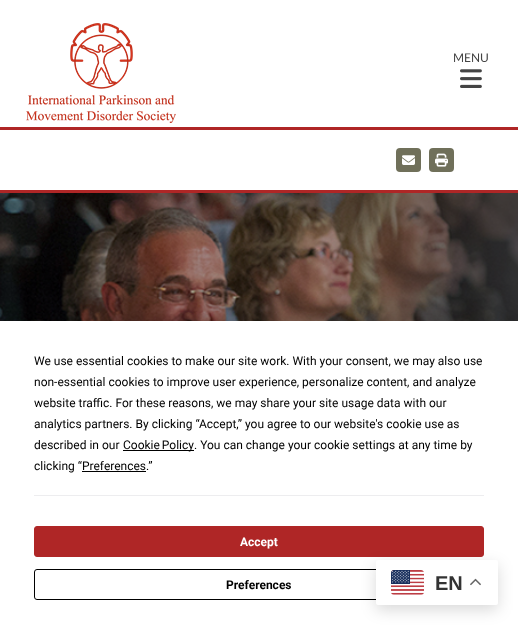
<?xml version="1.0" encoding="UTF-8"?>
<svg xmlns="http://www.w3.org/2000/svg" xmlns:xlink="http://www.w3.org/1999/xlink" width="518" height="630">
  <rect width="100%" height="100%" fill="#ffffff" />
  <rect y="127" width="518" height="3" fill="#af2626" />
  <image x="26" y="23" width="150" height="100" xlink:href="image1.png" />
  <image x="460" y="69" width="22" height="19" xlink:href="image2.png" />
  <rect y="190" width="518" height="3" fill="#af2626" />
  <rect x="396" y="148" width="25" height="24" rx="4" fill="#70705a" />
  <image x="402" y="155" width="13" height="10" xlink:href="image3.png" />
  <rect x="429" y="148" width="25" height="24" rx="4" fill="#70705a" />
  <image x="435" y="153" width="13" height="14" xlink:href="image4.png" />
  <image x="0" y="193" width="518" height="128" xlink:href="image5.png" />
  <rect y="321" width="518" height="309" fill="#000000" fill-opacity="0.25" filter="blur(17.5px)" />
  <rect y="321" width="518" height="309" fill="#ffffff" />
  <rect x="123" y="450" width="71" height="1" fill="#000000" />
  <rect x="82" y="471" width="64" height="1" fill="#000000" />
  <rect x="34" y="495" width="450" height="1" fill="#ededef" />
  <rect x="34.5" y="526.5" width="449" height="30" rx="2.5" fill="#af2626" stroke="#af2626" />
  <rect x="34.5" y="569.5" width="449" height="30" rx="2.5" fill="none" stroke="#000000" />
  <rect x="376" y="565" width="122" height="45" rx="2" fill="#000000" fill-opacity="0.15" filter="blur(7.5px)" />
  <rect x="376" y="560" width="122" height="45" rx="2" fill="#ffffff" />
  <image x="391" y="570" width="33" height="25" xlink:href="image6.png" />
  <image x="470" y="578" width="11" height="8" xlink:href="image7.png" />
  <text x="453" y="62" style="font-family: Lato; font-size: 12px; fill: #444444">MENU</text>
  <text x="34" y="365" style="font-family: Roboto; font-size: 12px; fill: #000000">We use essential cookies to make our site work. With your consent, we may also use</text>
  <text x="34" y="386" style="font-family: Roboto; font-size: 12px; fill: #000000">non-essential cookies to improve user experience, personalize content, and analyze</text>
  <text x="34" y="407" style="font-family: Roboto; font-size: 12px; fill: #000000">website traffic. For these reasons, we may share your site usage data with our</text>
  <text x="34" y="428" style="font-family: Roboto; font-size: 12px; fill: #000000">analytics partners. By clicking “Accept,” you agree to our website's cookie use as</text>
  <text x="34" y="449" style="font-family: Roboto; font-size: 12px; fill: #000000">described in our</text>
  <text x="123" y="449" word-spacing="-1" style="font-family: Roboto; font-size: 12px; fill: #000000">Cookie Policy</text>
  <text x="194" y="449" style="font-family: Roboto; font-size: 12px; fill: #000000">. You can change your cookie settings at any time by</text>
  <text x="34" y="470" style="font-family: Roboto; font-size: 12px; fill: #000000">clicking “Preferences.”</text>
  <text x="240" y="546" style="font-family: Roboto; font-size: 12px; font-weight: bold; fill: #ffffff">Accept</text>
  <text x="226" y="589" style="font-family: Roboto; font-size: 12px; font-weight: bold; fill: #000000">Preferences</text>
  <text x="435" y="590" style="font-family: Liberation Sans; font-size: 20px; font-weight: bold; fill: #333333">EN</text>
</svg>
